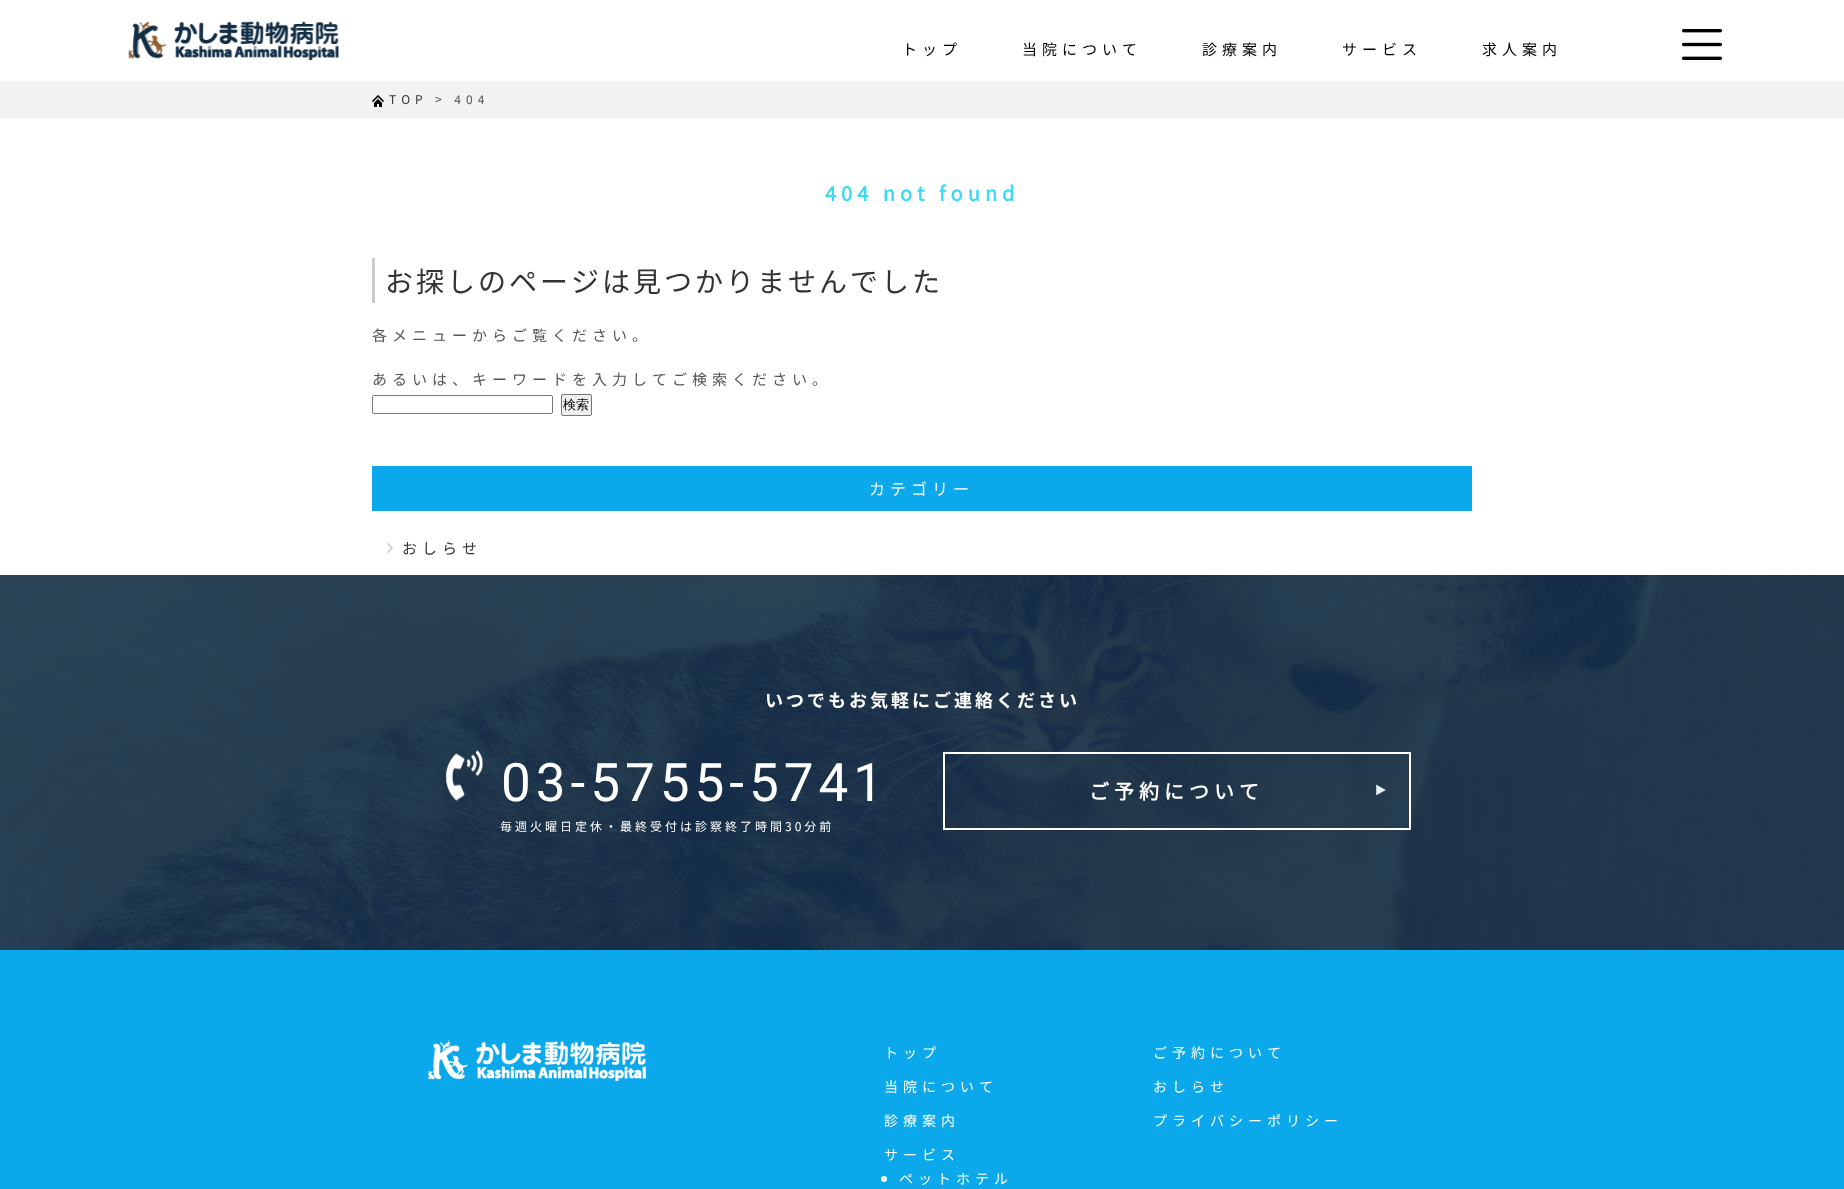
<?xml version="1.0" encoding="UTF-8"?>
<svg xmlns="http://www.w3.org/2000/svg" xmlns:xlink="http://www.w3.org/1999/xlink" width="1844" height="1189">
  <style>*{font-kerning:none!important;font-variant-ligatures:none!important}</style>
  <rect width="100%" height="100%" fill="#ffffff" />
  <image x="128" y="20" width="211" height="40" xlink:href="image1.png" />
  <image x="1682" y="29" width="40" height="31" xlink:href="image2.png" />
  <rect y="81" width="1844" height="37" fill="#f2f2f2" />
  <image x="372" y="95" width="12" height="12" xlink:href="image3.png" />
  <rect x="372" y="258" width="3" height="45" fill="#cccccc" />
  <rect x="372.5" y="395.5" width="180" height="18" rx="1.5" fill="none" stroke="#767676" />
  <rect x="561.5" y="394.5" width="30" height="21" rx="1.5" fill="#efefef" stroke="#767676" />
  <rect x="372" y="466" width="1100" height="45" fill="#0ba8ec" />
  <image x="387" y="543" width="6" height="10" xlink:href="image4.png" />
  <rect y="950" width="1844" height="239" fill="#0ba8ec" />
  <image x="0" y="575" width="1844" height="375" xlink:href="image5.png" />
  <image x="446" y="750" width="37" height="51" xlink:href="image6.png" />
  <image x="1376" y="784" width="10" height="12" xlink:href="image7.png" />
  <rect x="944" y="753" width="466" height="76" fill="none" stroke="#ffffff" stroke-width="2" />
  <image x="428" y="1040" width="218" height="41" xlink:href="image8.png" />
  <circle cx="884" cy="1179" r="3" fill="#ffffff" />
  <text x="902" y="55" style="font-family: Noto Sans JP; font-size: 15px; font-weight: 100; letter-spacing: 5px; fill: #000000">トップ</text>
  <text x="1022" y="55" style="font-family: Noto Sans JP; font-size: 15px; font-weight: 100; letter-spacing: 5px; fill: #000000">当院について</text>
  <text x="1202" y="55" style="font-family: Noto Sans JP; font-size: 15px; font-weight: 100; letter-spacing: 5px; fill: #000000">診療案内</text>
  <text x="1342" y="55" style="font-family: Noto Sans JP; font-size: 15px; font-weight: 100; letter-spacing: 5px; fill: #000000">サービス</text>
  <text x="1482" y="55" style="font-family: Noto Sans JP; font-size: 15px; font-weight: 100; letter-spacing: 5px; fill: #000000">求人案内</text>
  <text x="389" y="104" style="font-family: Noto Sans JP; font-size: 12px; font-weight: 100; letter-spacing: 5px; fill: #333333">TOP</text>
  <text x="435" y="104" style="font-family: Noto Sans JP; font-size: 12px; font-weight: 100; letter-spacing: 5px; fill: #555555">&gt; 404</text>
  <text x="825" y="201" style="font-family: Noto Sans JP; font-size: 20px; font-weight: bold; letter-spacing: 5px; fill: #36dbf4">404 not found</text>
  <text x="385" y="292" style="font-family: Noto Sans JP; font-size: 28px; font-weight: 100; letter-spacing: 3px; fill: #333333">お探しのページは見つかりませんでした</text>
  <text x="372" y="341" style="font-family: Noto Sans JP; font-size: 15px; font-weight: 100; letter-spacing: 5px; fill: #555555">各メニューからご覧ください。</text>
  <text x="372" y="385" style="font-family: Noto Sans JP; font-size: 15px; font-weight: 100; letter-spacing: 5px; fill: #555555">あるいは、キーワードを入力してご検索ください。</text>
  <text x="563" y="409" style="font-family: WenQuanYi Zen Hei; font-size: 13px; font-weight: 500; fill: #000000">検索</text>
  <text x="869" y="495" style="font-family: Noto Sans JP; font-size: 16px; font-weight: 100; letter-spacing: 5px; fill: #ffffff">カテゴリー</text>
  <text x="402" y="554" style="font-family: Noto Sans JP; font-size: 15px; font-weight: 100; letter-spacing: 5px; fill: #333333">おしらせ</text>
  <text x="765" y="707" style="font-family: Noto Sans CJK JP; font-size: 18px; font-weight: bold; letter-spacing: 3px; fill: #ffffff">いつでもお気軽にご連絡ください</text>
  <text x="501" y="801" style="font-family: Roboto; font-size: 53px; letter-spacing: 5px; fill: #ffffff">03-5755-5741</text>
  <text x="500" y="831" style="font-family: Noto Sans CJK JP; font-size: 12px; letter-spacing: 3px; fill: #ffffff">毎週火曜日定休・最終受付は診察終了時間30分前</text>
  <text x="1089" y="799" style="font-family: Noto Sans JP; font-size: 20px; font-weight: bold; letter-spacing: 5px; fill: #ffffff">ご予約について</text>
  <text x="884" y="1058" style="font-family: Noto Sans JP; font-size: 14px; font-weight: 100; letter-spacing: 5px; fill: #ffffff">トップ</text>
  <text x="884" y="1092" style="font-family: Noto Sans JP; font-size: 14px; font-weight: 100; letter-spacing: 5px; fill: #ffffff">当院について</text>
  <text x="884" y="1126" style="font-family: Noto Sans JP; font-size: 14px; font-weight: 100; letter-spacing: 5px; fill: #ffffff">診療案内</text>
  <text x="884" y="1160" style="font-family: Noto Sans JP; font-size: 14px; font-weight: 100; letter-spacing: 5px; fill: #ffffff">サービス</text>
  <text x="899" y="1184" style="font-family: Noto Sans JP; font-size: 14px; font-weight: 100; letter-spacing: 5px; fill: #ffffff">ペットホテル</text>
  <text x="1153" y="1058" style="font-family: Noto Sans JP; font-size: 14px; font-weight: 100; letter-spacing: 5px; fill: #ffffff">ご予約について</text>
  <text x="1153" y="1092" style="font-family: Noto Sans JP; font-size: 14px; font-weight: 100; letter-spacing: 5px; fill: #ffffff">おしらせ</text>
  <text x="1153" y="1126" style="font-family: Noto Sans JP; font-size: 14px; font-weight: 100; letter-spacing: 5px; fill: #ffffff">プライバシーポリシー</text>
</svg>
